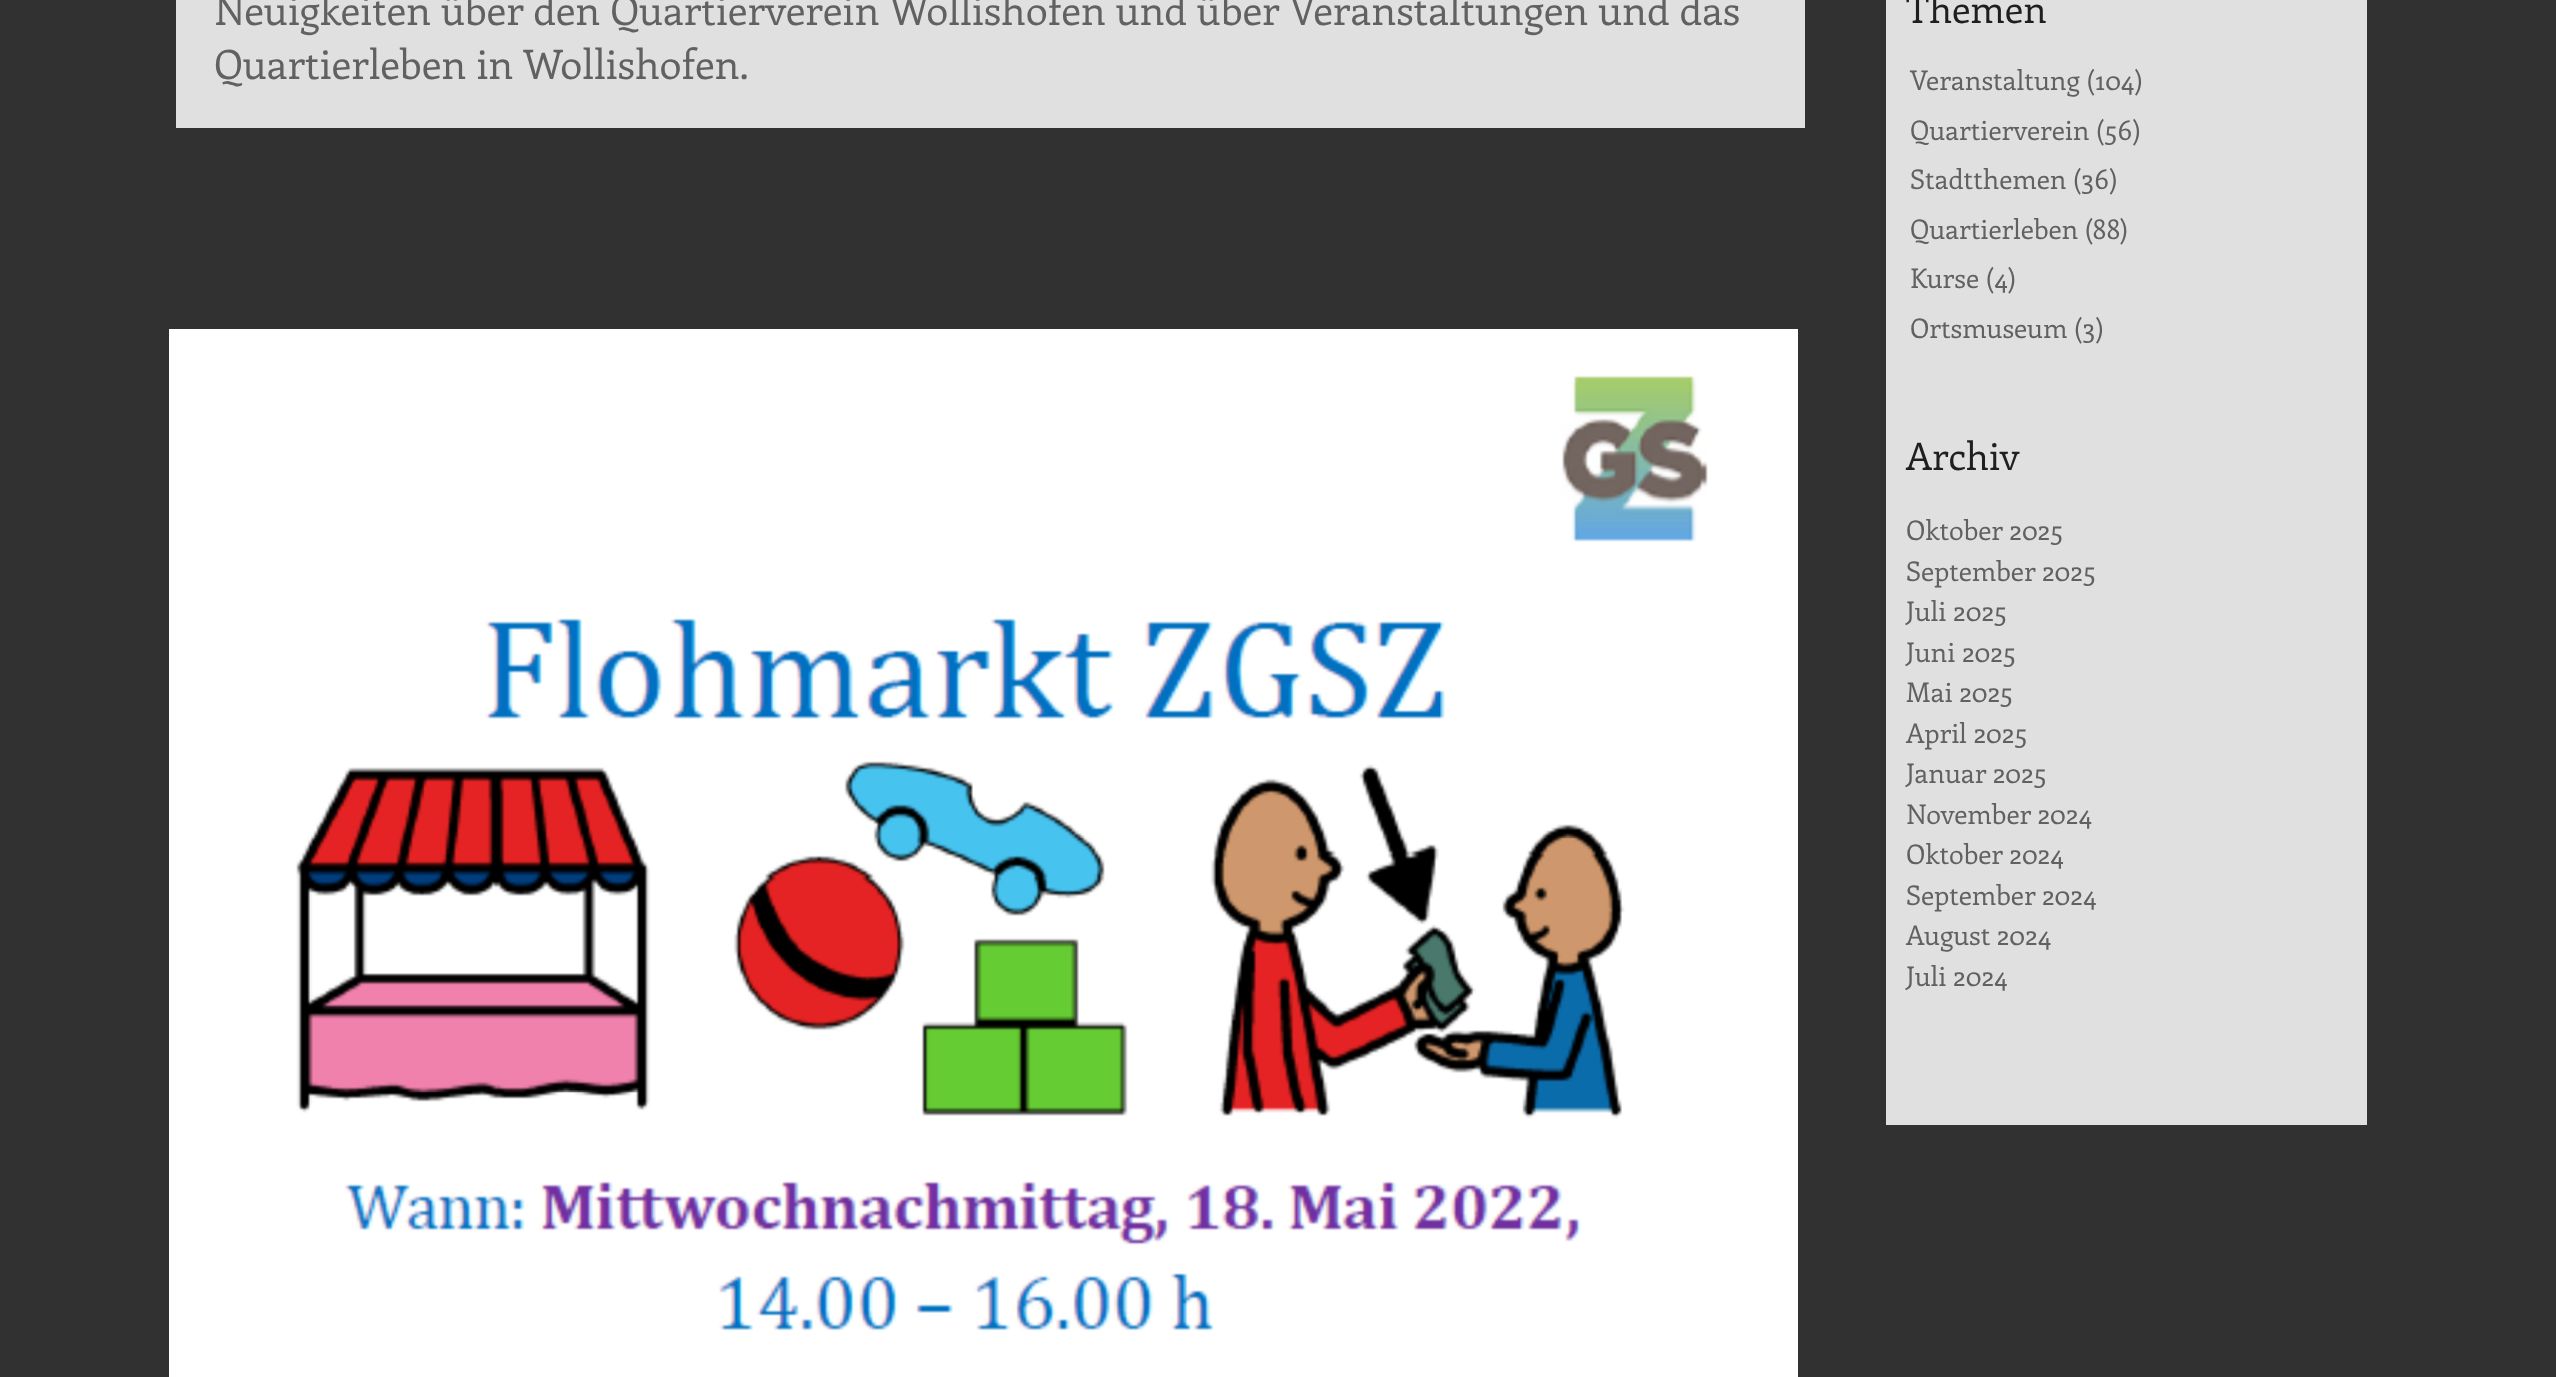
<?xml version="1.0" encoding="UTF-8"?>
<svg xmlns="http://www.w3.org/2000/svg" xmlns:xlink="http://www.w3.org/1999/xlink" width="2556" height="1377">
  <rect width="100%" height="100%" fill="#313131" />
  <rect x="176" width="1629" height="128" fill="#e0e0e0" />
  <rect x="1886" width="481" height="1125" fill="#e0e0e0" />
  <image x="169" y="329" width="1629" height="1048" xlink:href="image1.png" />
  <text x="214" y="25" style="font-family: Enriqueta; font-size: 40.5px; fill: #616161">Neuigkeiten über den Quartierverein Wollishofen und über Veranstaltungen und das</text>
  <text x="214" y="79" style="font-family: Enriqueta; font-size: 40.5px; fill: #616161">Quartierleben in Wollishofen.</text>
  <text x="1906" y="23" style="font-family: Enriqueta; font-size: 38px; fill: #1f1f1f">Themen</text>
  <text x="1910" y="90" style="font-family: Enriqueta; font-size: 27px; fill: #616161">Veranstaltung (104)</text>
  <text x="1910" y="140" style="font-family: Enriqueta; font-size: 27px; fill: #616161">Quartierverein (56)</text>
  <text x="1910" y="189" style="font-family: Enriqueta; font-size: 27px; fill: #616161">Stadtthemen (36)</text>
  <text x="1910" y="239" style="font-family: Enriqueta; font-size: 27px; fill: #616161">Quartierleben (88)</text>
  <text x="1910" y="288" style="font-family: Enriqueta; font-size: 27px; fill: #616161">Kurse (4)</text>
  <text x="1910" y="338" style="font-family: Enriqueta; font-size: 27px; fill: #616161">Ortsmuseum (3)</text>
  <text x="1906" y="470" style="font-family: Enriqueta; font-size: 38px; fill: #1f1f1f">Archiv</text>
  <text x="1906" y="540" style="font-family: Enriqueta; font-size: 27px; fill: #616161">Oktober 2025</text>
  <text x="1906" y="581" style="font-family: Enriqueta; font-size: 27px; fill: #616161">September 2025</text>
  <text x="1906" y="621" style="font-family: Enriqueta; font-size: 27px; fill: #616161">Juli 2025</text>
  <text x="1906" y="662" style="font-family: Enriqueta; font-size: 27px; fill: #616161">Juni 2025</text>
  <text x="1906" y="702" style="font-family: Enriqueta; font-size: 27px; fill: #616161">Mai 2025</text>
  <text x="1906" y="743" style="font-family: Enriqueta; font-size: 27px; fill: #616161">April 2025</text>
  <text x="1906" y="783" style="font-family: Enriqueta; font-size: 27px; fill: #616161">Januar 2025</text>
  <text x="1906" y="824" style="font-family: Enriqueta; font-size: 27px; fill: #616161">November 2024</text>
  <text x="1906" y="864" style="font-family: Enriqueta; font-size: 27px; fill: #616161">Oktober 2024</text>
  <text x="1906" y="905" style="font-family: Enriqueta; font-size: 27px; fill: #616161">September 2024</text>
  <text x="1906" y="945" style="font-family: Enriqueta; font-size: 27px; fill: #616161">August 2024</text>
  <text x="1906" y="986" style="font-family: Enriqueta; font-size: 27px; fill: #616161">Juli 2024</text>
</svg>
